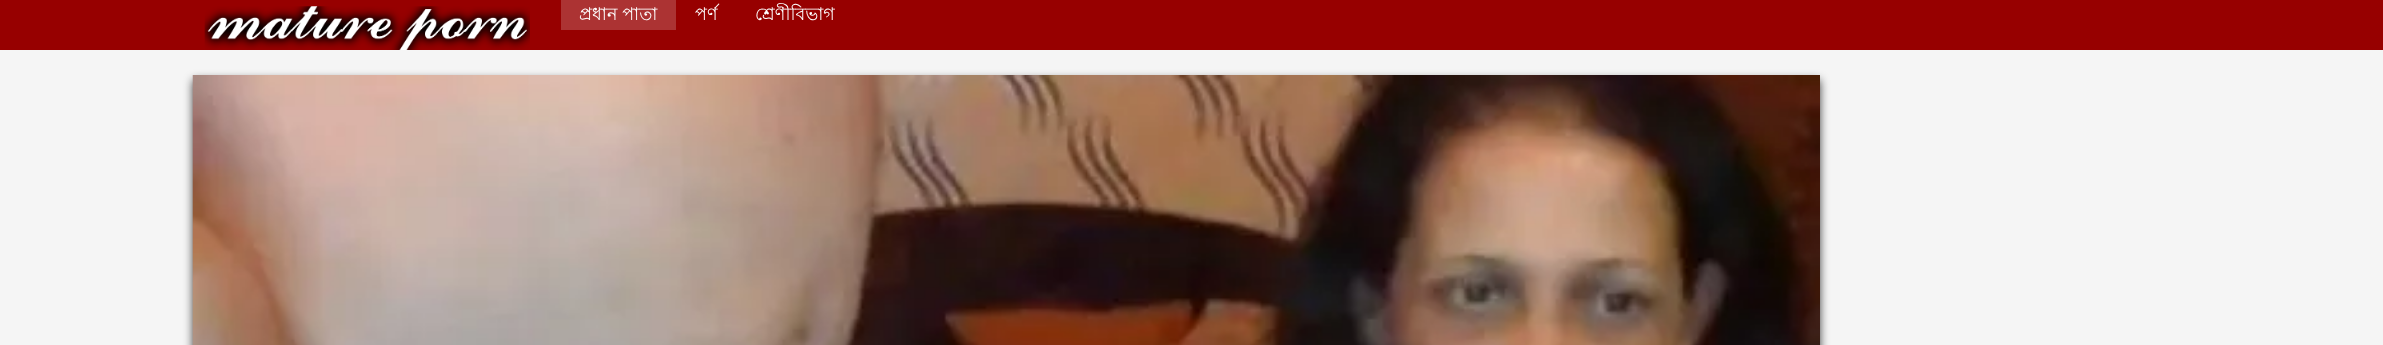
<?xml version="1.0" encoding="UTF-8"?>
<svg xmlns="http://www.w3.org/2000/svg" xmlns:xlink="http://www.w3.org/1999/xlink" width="2383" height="345">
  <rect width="100%" height="100%" fill="#f5f5f5" />
  <rect width="2383" height="50" fill="#970000" />
  <image x="204" y="6" width="326" height="44" xlink:href="image1.png" />
  <rect x="561" width="115" height="30" fill="#ac3333" />
  <rect x="193" y="80" width="1627" height="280" fill="#000000" fill-opacity="0.75" filter="blur(5px)" />
  <image x="192" y="75" width="1628" height="270" xlink:href="image2.png" />
  <text x="579" y="20" style="font-family: Lohit Bengali; font-size: 17.5px; fill: #ffffff">প্রধান পাতা</text>
  <text x="695" y="20" style="font-family: Lohit Bengali; font-size: 17.5px; fill: #ffffff">পর্ণ</text>
  <text x="755" y="20" style="font-family: Lohit Bengali; font-size: 17.5px; fill: #ffffff">শ্রেণীবিভাগ</text>
</svg>
